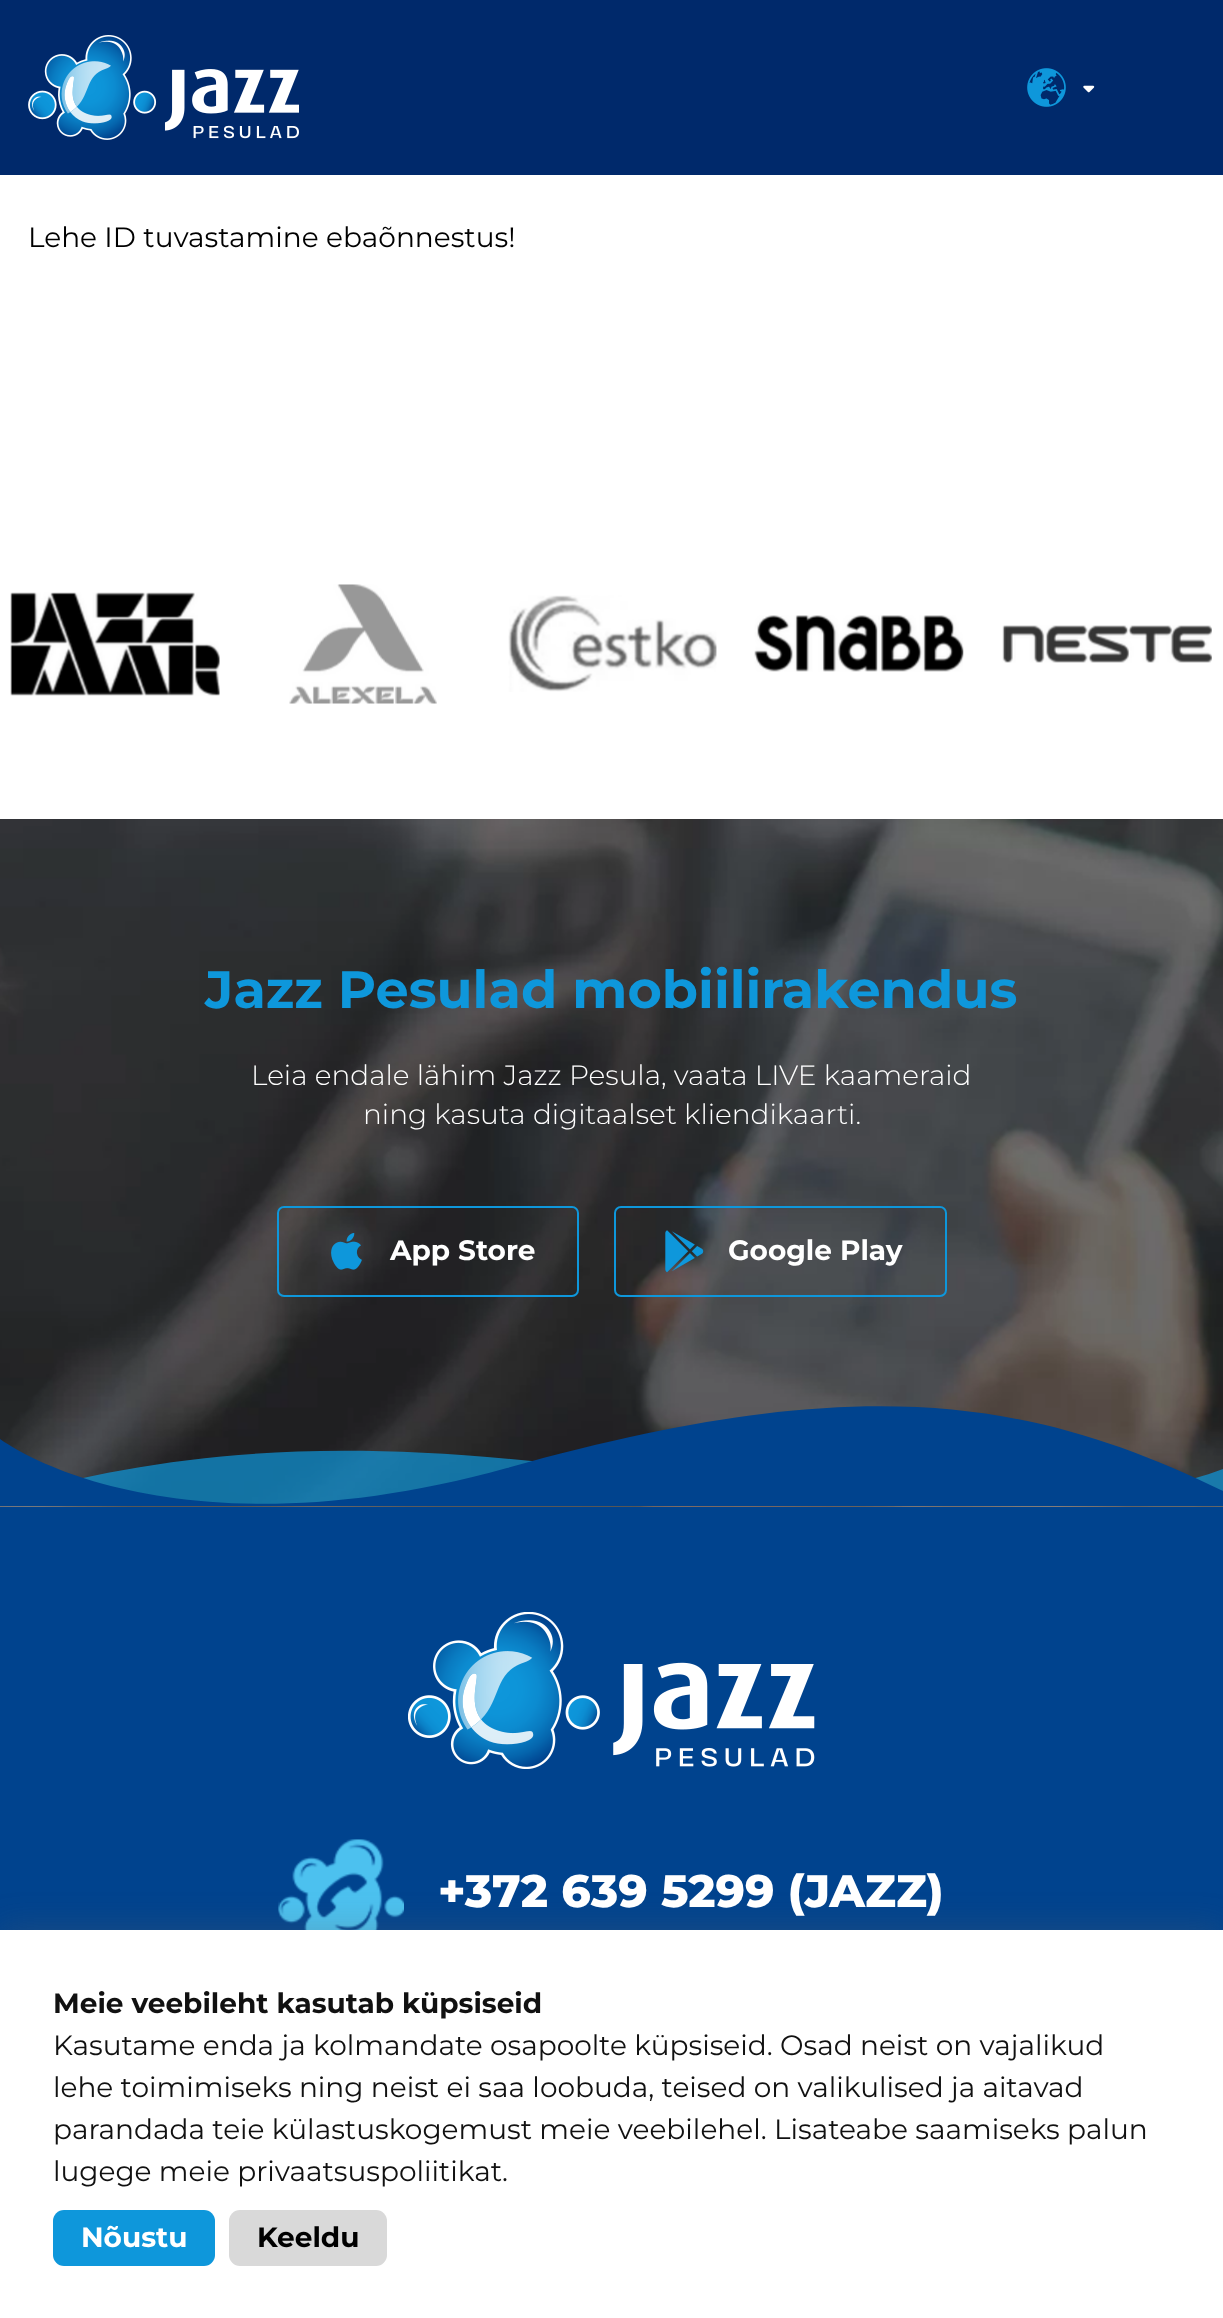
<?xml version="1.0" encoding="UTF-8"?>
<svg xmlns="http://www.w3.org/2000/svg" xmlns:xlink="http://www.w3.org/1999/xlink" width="1223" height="2318">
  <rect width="100%" height="100%" fill="#ffffff" />
  <rect width="1223" height="175" fill="#00296b" />
  <image x="28" y="35" width="271" height="105" xlink:href="image1.png" />
  <image x="1027" y="68" width="39" height="39" xlink:href="image2.png" />
  <image x="1083" y="85" width="12" height="8" xlink:href="image3.png" />
  <image x="10" y="592" width="210" height="104" xlink:href="image4.png" />
  <image x="289" y="584" width="148" height="120" xlink:href="image5.png" />
  <image x="508" y="595" width="209" height="97" xlink:href="image6.png" />
  <image x="754" y="615" width="210" height="57" xlink:href="image7.png" />
  <image x="1002" y="625" width="210" height="38" xlink:href="image8.png" />
  <image x="0" y="819" width="1223" height="688" xlink:href="image9.png" />
  <rect x="278" y="1207" width="300" height="89" rx="6" fill="none" stroke="#0e97db" stroke-width="2" />
  <image x="331" y="1233" width="31" height="37" xlink:href="image10.png" />
  <rect x="615" y="1207" width="331" height="89" rx="6" fill="none" stroke="#0e97db" stroke-width="2" />
  <image x="665" y="1230" width="39" height="43" xlink:href="image11.png" />
  <rect y="1507" width="1223" height="423" fill="#00438e" />
  <path d="M 717 1485 c 273 42 444 8 506 -16 v 37 h -1223 v -8 c 187 -50 357 -69 717 -13 z" fill="#0e97db" fill-opacity="0.7" />
  <path d="M 507 1468 c -273 76 -445 14 -507 -29 v 67 h 1223 v -15 c -186 -90 -357 -124 -716 -23 z" fill="#00438e" />
  <image x="408" y="1612" width="407" height="157" xlink:href="image12.png" />
  <image x="278" y="1839" width="126" height="91" xlink:href="image13.png" />
  <rect y="1930" width="1223" height="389" fill="#646464" fill-opacity="0.3" filter="blur(17.5px)" />
  <rect y="1930" width="1223" height="388" fill="#ffffff" />
  <rect x="53" y="2210" width="162" height="56" rx="11" fill="#0e97db" />
  <rect x="229" y="2210" width="158" height="56" rx="11" fill="#d9d9d9" />
  <text x="28" y="247" style="font-family: Montserrat; font-size: 28px; fill: #000000">Lehe ID tuvastamine ebaõnnestus!</text>
  <text x="205" y="1008" style="font-family: Montserrat; font-size: 52.5px; font-weight: bold; fill: #0e97db">Jazz Pesulad mobiilirakendus</text>
  <text x="251" y="1085" style="font-family: Montserrat; font-size: 28px; font-weight: 300; fill: #ffffff">Leia endale lähim Jazz Pesula, vaata LIVE kaameraid</text>
  <text x="363" y="1124" style="font-family: Montserrat; font-size: 28px; font-weight: 300; fill: #ffffff">ning kasuta digitaalset kliendikaarti.</text>
  <text x="390" y="1260" style="font-family: Montserrat; font-size: 28px; font-weight: bold; fill: #ffffff">App Store</text>
  <text x="728" y="1260" style="font-family: Montserrat; font-size: 28px; font-weight: bold; fill: #ffffff">Google Play</text>
  <text x="438" y="1907" style="font-family: Montserrat; font-size: 45.5px; font-weight: 800; fill: #ffffff">+372 639 5299 (JAZZ)</text>
  <text x="53" y="2013" style="font-family: Montserrat; font-size: 28px; font-weight: bold; fill: #111111">Meie veebileht kasutab küpsiseid</text>
  <text x="53" y="2055" style="font-family: Montserrat; font-size: 28px; fill: #111111">Kasutame enda ja kolmandate osapoolte küpsiseid. Osad neist on vajalikud</text>
  <text x="53" y="2097" style="font-family: Montserrat; font-size: 28px; fill: #111111">lehe toimimiseks ning neist ei saa loobuda, teised on valikulised ja aitavad</text>
  <text x="53" y="2139" style="font-family: Montserrat; font-size: 28px; fill: #111111">parandada teie külastuskogemust meie veebilehel. Lisateabe saamiseks palun</text>
  <text x="53" y="2181" style="font-family: Montserrat; font-size: 28px; fill: #111111">lugege meie privaatsuspoliitikat</text>
  <text x="502" y="2181" style="font-family: Montserrat; font-size: 28px; fill: #111111">.</text>
  <text x="81" y="2247" style="font-family: Montserrat; font-size: 28px; font-weight: bold; fill: #ffffff">Nõustu</text>
  <text x="257" y="2247" style="font-family: Montserrat; font-size: 28px; font-weight: bold; fill: #000000">Keeldu</text>
</svg>
